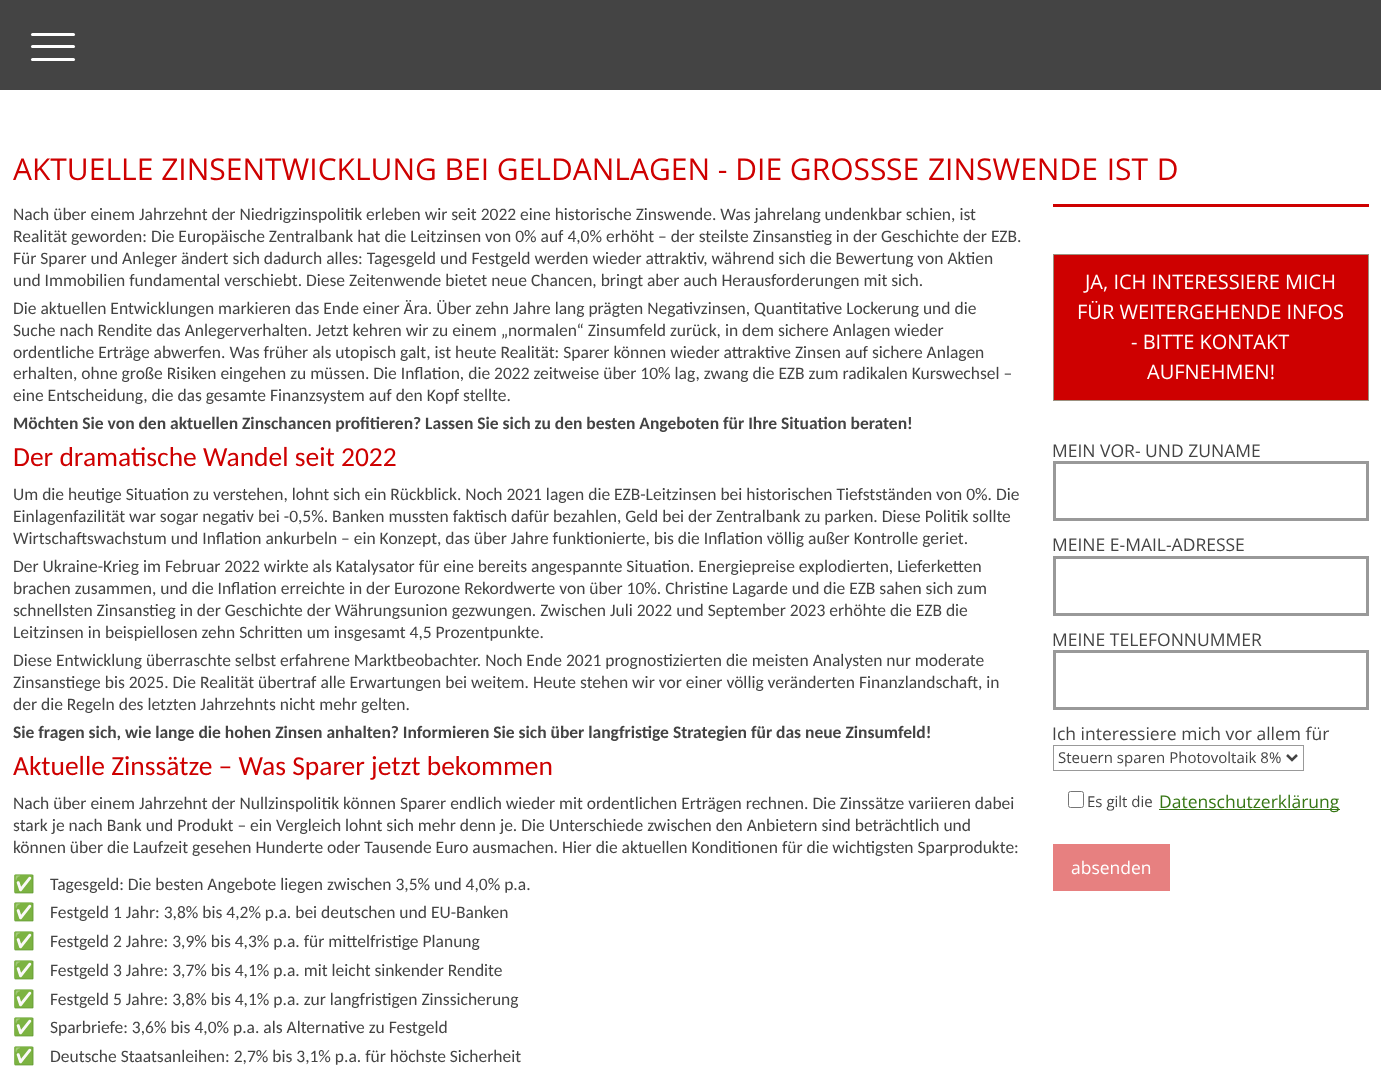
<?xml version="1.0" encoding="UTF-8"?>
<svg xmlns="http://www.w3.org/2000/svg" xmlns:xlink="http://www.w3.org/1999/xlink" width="1381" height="1081">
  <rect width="100%" height="100%" fill="#ffffff" />
  <rect width="1381" height="90" fill="#444444" />
  <rect x="31" y="33" width="44" height="3" rx="1.5" fill="#ffffff" />
  <rect x="31" y="45" width="44" height="3" rx="1.5" fill="#ffffff" />
  <rect x="31" y="58" width="44" height="3" rx="1.5" fill="#ffffff" />
  <rect x="1053" y="204" width="316" height="3" fill="#ce0000" />
  <rect x="1053.5" y="254.5" width="315" height="146" fill="#ce0000" stroke="#9c9180" />
  <rect x="1054.5" y="462.5" width="313" height="57" fill="none" stroke="#999999" stroke-width="3" />
  <rect x="1054.5" y="557.5" width="313" height="57" fill="none" stroke="#999999" stroke-width="3" />
  <rect x="1054.5" y="651.5" width="313" height="57" fill="none" stroke="#999999" stroke-width="3" />
  <rect x="1053.5" y="745.5" width="250" height="25" fill="none" stroke="#999999" />
  <path d="M 1287 755 l 5 5 l 5 -5" fill="none" stroke="#444444" stroke-width="2.5" />
  <rect x="1068.5" y="791.5" width="15" height="16" rx="2" fill="none" stroke="#767676" />
  <rect x="1159" y="809" width="181" height="1" fill="#367614" />
  <rect x="1053" y="844" width="117" height="47" fill="#e78080" />
  <text x="13" y="180" style="font-family: Open Sans; font-size: 30px; fill: #ce0000">AKTUELLE ZINSENTWICKLUNG BEI GELDANLAGEN - DIE GROSS</text>
  <text x="886" y="180" word-spacing="1" style="font-family: Open Sans; font-size: 30px; fill: #ce0000">SE ZINSWENDE IST D</text>
  <text x="13" y="220" style="font-family: Carlito; font-size: 17.5px; fill: #444444">Nach über einem Jahrzehnt der Niedrigzinspolitik erleben wir seit 2022 eine historische Zinswende. Was jahrelang undenkbar schien, ist</text>
  <text x="13" y="242" style="font-family: Carlito; font-size: 17.5px; fill: #444444">Realität geworden: Die Europäische Zentralbank hat die Leitzinsen von 0% auf 4,0% erhöht – der steilste Zinsanstieg in der Geschichte der EZB.</text>
  <text x="13" y="264" style="font-family: Carlito; font-size: 17.5px; fill: #444444">Für Sparer und Anleger ändert sich dadurch alles: Tagesgeld und Festgeld werden wieder attraktiv, während sich die Bewertung von Aktien</text>
  <text x="13" y="286" style="font-family: Carlito; font-size: 17.5px; fill: #444444">und Immobilien fundamental verschiebt. Diese Zeitenwende bietet neue Chancen, bringt aber auch Herausforderungen mit sich.</text>
  <text x="13" y="314" style="font-family: Carlito; font-size: 17.5px; fill: #444444">Die aktuellen Entwicklungen markieren das Ende einer Ära. Über zehn Jahre lang prägten Negativzinsen, Quantitative Lockerung und die</text>
  <text x="13" y="336" style="font-family: Carlito; font-size: 17.5px; fill: #444444">Suche nach Rendite das Anlegerverhalten. Jetzt kehren wir zu einem „normalen“ Zinsumfeld zurück, in dem sichere Anlagen wieder</text>
  <text x="13" y="358" style="font-family: Carlito; font-size: 17.5px; fill: #444444">ordentliche Erträge abwerfen. Was früher als utopisch galt, ist heute Realität: Sparer können wieder attraktive Zinsen auf sichere Anlagen</text>
  <text x="13" y="379" style="font-family: Carlito; font-size: 17.5px; fill: #444444">erhalten, ohne große Risiken eingehen zu müssen. Die Inflation, die 2022 zeitweise über 10% lag, zwang die EZB zum radikalen Kurswechsel –</text>
  <text x="13" y="401" style="font-family: Carlito; font-size: 17.5px; fill: #444444">eine Entscheidung, die das gesamte Finanzsystem auf den Kopf stellte.</text>
  <text x="13" y="429" style="font-family: Carlito; font-size: 17.5px; font-weight: bold; fill: #444444">Möchten Sie von den aktuellen Zinschancen profitieren? Lassen Sie sich zu den besten Angeboten für Ihre Situation beraten!</text>
  <text x="13" y="466" style="font-family: Carlito; font-size: 27.5px; fill: #ce0000">Der dramatische Wandel seit 2022</text>
  <text x="13" y="500" style="font-family: Carlito; font-size: 17.5px; fill: #444444">Um die heutige Situation zu verstehen, lohnt sich ein Rückblick. Noch 2021 lagen die EZB-Leitzinsen bei historischen Tiefstständen von 0%. Die</text>
  <text x="13" y="522" style="font-family: Carlito; font-size: 17.5px; fill: #444444">Einlagenfazilität war sogar negativ bei -0,5%. Banken mussten faktisch dafür bezahlen, Geld bei der Zentralbank zu parken. Diese Politik sollte</text>
  <text x="13" y="544" style="font-family: Carlito; font-size: 17.5px; fill: #444444">Wirtschaftswachstum und Inflation ankurbeln – ein Konzept, das über Jahre funktionierte, bis die Inflation völlig außer Kontrolle geriet.</text>
  <text x="13" y="572" style="font-family: Carlito; font-size: 17.5px; fill: #444444">Der Ukraine-Krieg im Februar 2022 wirkte als Katalysator für eine bereits angespannte Situation. Energiepreise explodierten, Lieferketten</text>
  <text x="13" y="594" style="font-family: Carlito; font-size: 17.5px; fill: #444444">brachen zusammen, und die Inflation erreichte in der Eurozone Rekordwerte von über 10%. Christine Lagarde und die EZB sahen sich zum</text>
  <text x="13" y="616" style="font-family: Carlito; font-size: 17.5px; fill: #444444">schnellsten Zinsanstieg in der Geschichte der Währungsunion gezwungen. Zwischen Juli 2022 und September 2023 erhöhte die EZB die</text>
  <text x="13" y="638" style="font-family: Carlito; font-size: 17.5px; fill: #444444">Leitzinsen in beispiellosen zehn Schritten um insgesamt 4,5 Prozentpunkte.</text>
  <text x="13" y="666" style="font-family: Carlito; font-size: 17.5px; fill: #444444">Diese Entwicklung überraschte selbst erfahrene Marktbeobachter. Noch Ende 2021 prognostizierten die meisten Analysten nur moderate</text>
  <text x="13" y="688" style="font-family: Carlito; font-size: 17.5px; fill: #444444">Zinsanstiege bis 2025. Die Realität übertraf alle Erwartungen bei weitem. Heute stehen wir vor einer völlig veränderten Finanzlandschaft, in</text>
  <text x="13" y="710" style="font-family: Carlito; font-size: 17.5px; fill: #444444">der die Regeln des letzten Jahrzehnts nicht mehr gelten.</text>
  <text x="13" y="738" style="font-family: Carlito; font-size: 17.5px; font-weight: bold; fill: #444444">Sie fragen sich, wie lange die hohen Zinsen anhalten? Informieren Sie sich über langfristige Strategien für das neue Zinsumfeld!</text>
  <text x="13" y="775" style="font-family: Carlito; font-size: 27.5px; fill: #ce0000">Aktuelle Zinssätze – Was Sparer jetzt bekommen</text>
  <text x="13" y="809" style="font-family: Carlito; font-size: 17.5px; fill: #444444">Nach über einem Jahrzehnt der Nullzinspolitik können Sparer endlich wieder mit ordentlichen Erträgen rechnen. Die Zinssätze variieren dabei</text>
  <text x="13" y="831" style="font-family: Carlito; font-size: 17.5px; fill: #444444">stark je nach Bank und Produkt – ein Vergleich lohnt sich mehr denn je. Die Unterschiede zwischen den Anbietern sind beträchtlich und</text>
  <text x="13" y="853" style="font-family: Carlito; font-size: 17.5px; fill: #444444">können über die Laufzeit gesehen Hunderte oder Tausende Euro ausmachen. Hier die aktuellen Konditionen für die wichtigsten Sparprodukte:</text>
  <text x="13" y="890" style="font-family: Noto Color Emoji; font-size: 17.5px; fill: #00aa00">✅</text>
  <text x="50" y="890" style="font-family: Carlito; font-size: 17.5px; fill: #444444">Tagesgeld: Die besten Angebote liegen zwischen 3,5% und 4,0% p.a.</text>
  <text x="13" y="918" style="font-family: Noto Color Emoji; font-size: 17.5px; fill: #00aa00">✅</text>
  <text x="50" y="918" style="font-family: Carlito; font-size: 17.5px; fill: #444444">Festgeld 1 Jahr: 3,8% bis 4,2% p.a. bei deutschen und EU-Banken</text>
  <text x="13" y="947" style="font-family: Noto Color Emoji; font-size: 17.5px; fill: #00aa00">✅</text>
  <text x="50" y="947" style="font-family: Carlito; font-size: 17.5px; fill: #444444">Festgeld 2 Jahre: 3,9% bis 4,3% p.a. für mittelfristige Planung</text>
  <text x="13" y="976" style="font-family: Noto Color Emoji; font-size: 17.5px; fill: #00aa00">✅</text>
  <text x="50" y="976" style="font-family: Carlito; font-size: 17.5px; fill: #444444">Festgeld 3 Jahre: 3,7% bis 4,1% p.a. mit leicht sinkender Rendite</text>
  <text x="13" y="1005" style="font-family: Noto Color Emoji; font-size: 17.5px; fill: #00aa00">✅</text>
  <text x="50" y="1005" style="font-family: Carlito; font-size: 17.5px; fill: #444444">Festgeld 5 Jahre: 3,8% bis 4,1% p.a. zur langfristigen Zinssicherung</text>
  <text x="13" y="1033" style="font-family: Noto Color Emoji; font-size: 17.5px; fill: #00aa00">✅</text>
  <text x="50" y="1033" style="font-family: Carlito; font-size: 17.5px; fill: #444444">Sparbriefe: 3,6% bis 4,0% p.a. als Alternative zu Festgeld</text>
  <text x="13" y="1062" style="font-family: Noto Color Emoji; font-size: 17.5px; fill: #00aa00">✅</text>
  <text x="50" y="1062" style="font-family: Carlito; font-size: 17.5px; fill: #444444">Deutsche Staatsanleihen: 2,7% bis 3,1% p.a. für höchste Sicherheit</text>
  <text x="1085" y="289" style="font-family: Open Sans; font-size: 20px; fill: #ffffff">JA, ICH INTERESSIERE MICH</text>
  <text x="1077" y="319" style="font-family: Open Sans; font-size: 20px; fill: #ffffff">FÜR WEITERGEHENDE INFOS</text>
  <text x="1131" y="349" style="font-family: Open Sans; font-size: 20px; fill: #ffffff">- BITTE KONTAKT</text>
  <text x="1147" y="379" style="font-family: Open Sans; font-size: 20px; fill: #ffffff">AUFNEHMEN!</text>
  <text x="1052" y="457" style="font-family: Open Sans; font-size: 17.5px; fill: #444444">MEIN VOR- UND ZUNAME</text>
  <text x="1052" y="551" style="font-family: Open Sans; font-size: 17.5px; fill: #444444">MEINE E-MAIL-ADRESSE</text>
  <text x="1052" y="646" style="font-family: Open Sans; font-size: 17.5px; fill: #444444">MEINE TELEFONNUMMER</text>
  <text x="1052" y="740" style="font-family: Open Sans; font-size: 17.5px; fill: #444444">Ich interessiere mich vor allem für</text>
  <text x="1058" y="763" style="font-family: Open Sans; font-size: 15px; fill: #444444">Steuern sparen Photovoltaik 8%</text>
  <text x="1087" y="807" style="font-family: Open Sans; font-size: 15px; fill: #444444">Es gilt die</text>
  <text x="1159" y="808" style="font-family: Open Sans; font-size: 17.5px; fill: #367614">Datenschutzerklärung</text>
  <text x="1071" y="874" style="font-family: Open Sans; font-size: 17.5px; fill: #ffffff">absenden</text>
</svg>
